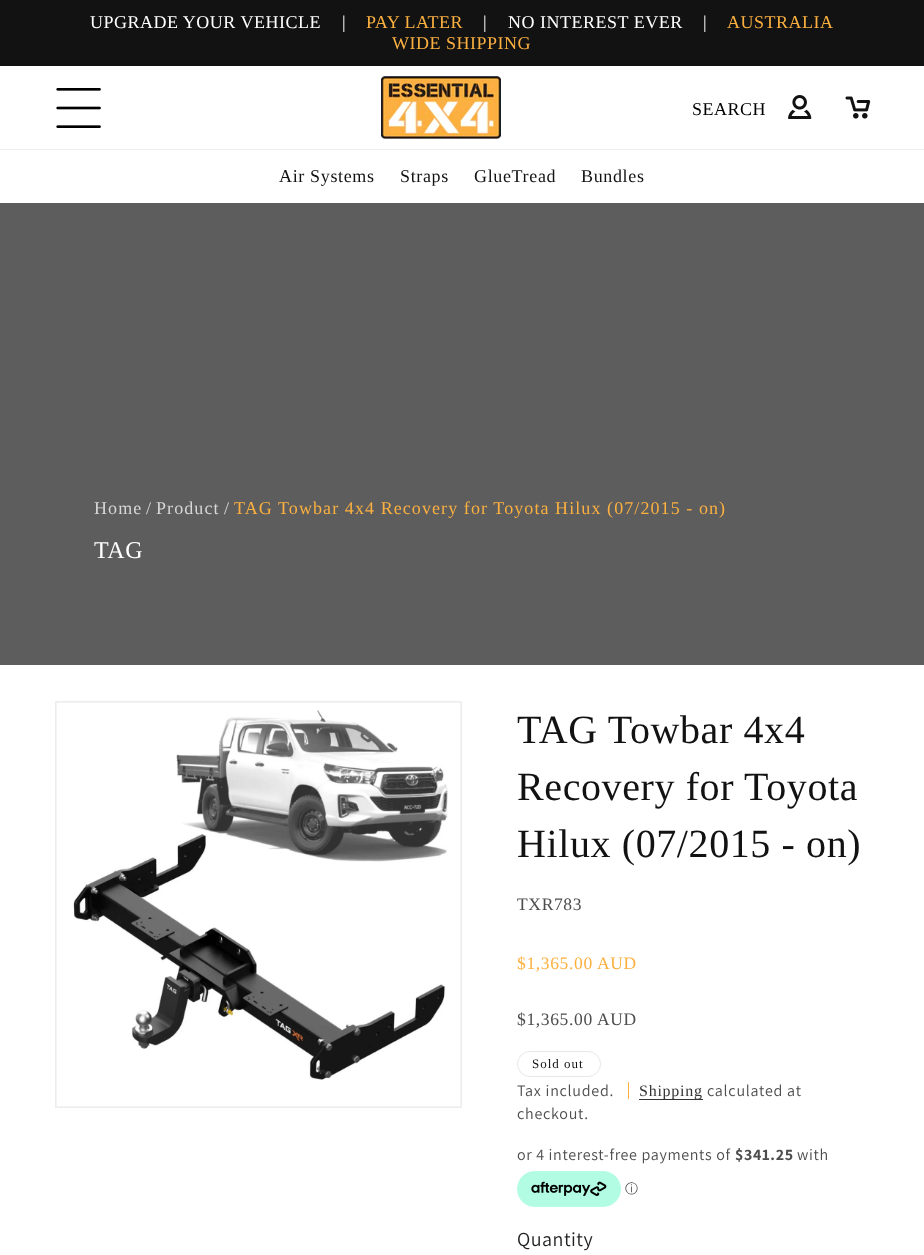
<?xml version="1.0" encoding="UTF-8"?>
<svg xmlns="http://www.w3.org/2000/svg" xmlns:xlink="http://www.w3.org/1999/xlink" width="924" height="1255">
  <rect width="100%" height="100%" fill="#ffffff" />
  <rect width="924" height="66" fill="#121212" />
  <rect y="149" width="924" height="1" fill="#ececec" />
  <image x="56" y="88" width="45" height="40" xlink:href="image1.png" />
  <image x="381" y="76" width="120" height="63" xlink:href="image2.png" />
  <image x="788" y="95" width="24" height="24" xlink:href="image3.png" />
  <image x="845" y="96" width="26" height="23" xlink:href="image4.png" />
  <rect y="203" width="924" height="462" fill="#5d5d5d" />
  <rect x="55.5" y="701.5" width="406" height="406" fill="none" stroke="#ededed" />
  <rect x="56.5" y="702.5" width="404" height="404" fill="none" stroke="#f3f3f3" />
  <image x="73" y="710" width="375" height="370" xlink:href="image5.png" />
  <rect x="517.5" y="1051.5" width="83" height="25" rx="12.5" fill="none" stroke="#e7e7e7" />
  <rect x="628" y="1082" width="1" height="17" fill="#fbb040" />
  <rect x="639" y="1099" width="64" height="1" fill="#363636" />
  <image x="517" y="1171" width="104" height="36" xlink:href="image6.png" />
  <text x="90" y="28" style="font-family: Liberation Serif; font-size: 18px; letter-spacing: 0.5px; fill: #ffffff">UPGRADE YOUR VEHICLE</text>
  <text x="342" y="28" style="font-family: Liberation Serif; font-size: 18px; letter-spacing: 0.5px; fill: #ffffff">|</text>
  <text x="366" y="28" style="font-family: Liberation Serif; font-size: 18px; letter-spacing: 0.5px; fill: #fbb040">PAY LATER</text>
  <text x="483" y="28" style="font-family: Liberation Serif; font-size: 18px; letter-spacing: 0.5px; fill: #ffffff">|</text>
  <text x="508" y="28" style="font-family: Liberation Serif; font-size: 18px; letter-spacing: 0.5px; fill: #ffffff">NO INTEREST EVER</text>
  <text x="703" y="28" style="font-family: Liberation Serif; font-size: 18px; letter-spacing: 0.5px; fill: #ffffff">|</text>
  <text x="727" y="28" style="font-family: Liberation Serif; font-size: 18px; letter-spacing: 0.5px; fill: #fbb040">AUSTRALIA</text>
  <text x="392" y="49" style="font-family: Liberation Serif; font-size: 18px; letter-spacing: 0.5px; fill: #fbb040">WIDE SHIPPING</text>
  <text x="692" y="115" style="font-family: Liberation Serif; font-size: 18px; letter-spacing: 0.5px; fill: #000000">SEARCH</text>
  <text x="279" y="182" style="font-family: Liberation Serif; font-size: 18px; letter-spacing: 0.65px; fill: #121212">Air Systems</text>
  <text x="400" y="182" style="font-family: Liberation Serif; font-size: 18px; letter-spacing: 0.65px; fill: #121212">Straps</text>
  <text x="474" y="182" style="font-family: Liberation Serif; font-size: 18px; letter-spacing: 0.65px; fill: #121212">GlueTread</text>
  <text x="581" y="182" style="font-family: Liberation Serif; font-size: 18px; letter-spacing: 0.65px; fill: #121212">Bundles</text>
  <text x="94" y="514" style="font-family: Liberation Serif; font-size: 18px; letter-spacing: 1.08px; fill: #d7d7d7">Home</text>
  <text x="146" y="514" style="font-family: Liberation Serif; font-size: 18px; letter-spacing: 1.08px; fill: #d7d7d7">/</text>
  <text x="156" y="514" style="font-family: Liberation Serif; font-size: 18px; letter-spacing: 1.08px; fill: #d7d7d7">Product</text>
  <text x="224" y="514" style="font-family: Liberation Serif; font-size: 18px; letter-spacing: 1.08px; fill: #d7d7d7">/</text>
  <text x="234" y="514" style="font-family: Liberation Serif; font-size: 18px; letter-spacing: 1.08px; fill: #fbb040">TAG Towbar 4x4 Recovery for Toyota Hilux (07/2015 - on)</text>
  <text x="94" y="558" style="font-family: Liberation Serif; font-size: 24px; letter-spacing: 0.6px; fill: #ffffff">TAG</text>
  <text x="517" y="743" style="font-family: Liberation Serif; font-size: 40px; letter-spacing: 0.6px; fill: #121212">TAG Towbar 4x4</text>
  <text x="517" y="800" style="font-family: Liberation Serif; font-size: 40px; letter-spacing: 0.6px; fill: #121212">Recovery for Toyota</text>
  <text x="517" y="857" style="font-family: Liberation Serif; font-size: 40px; letter-spacing: 0.6px; fill: #121212">Hilux (07/2015 - on)</text>
  <text x="517" y="910" style="font-family: Liberation Serif; font-size: 17.5px; letter-spacing: 0.65px; fill: #4d4d4d">TXR783</text>
  <text x="517" y="969" style="font-family: Liberation Serif; font-size: 17.5px; letter-spacing: 0.65px; fill: #fbb040">$1,365.00 AUD</text>
  <text x="517" y="1025" style="font-family: Liberation Serif; font-size: 17.5px; letter-spacing: 0.65px; fill: #4d4d4d">$1,365.00 AUD</text>
  <text x="532" y="1068" style="font-family: Liberation Serif; font-size: 13px; letter-spacing: 1px; fill: #121212">Sold out</text>
  <text x="517" y="1096" style="font-family: Assistant; font-size: 16px; letter-spacing: 0.75px; fill: #4d4d4d">Tax included.</text>
  <text x="639" y="1096" style="font-family: Liberation Serif; font-size: 16px; letter-spacing: 0.75px; fill: #353535">Shipping</text>
  <text x="707" y="1096" style="font-family: Assistant; font-size: 16px; letter-spacing: 0.75px; fill: #4d4d4d">calculated at</text>
  <text x="517" y="1119" style="font-family: Assistant; font-size: 16px; letter-spacing: 0.75px; fill: #4d4d4d">checkout.</text>
  <text x="517" y="1160" style="font-family: Assistant; font-size: 16px; letter-spacing: 0.65px; fill: #4d4d4d">or 4 interest-free payments of</text>
  <text x="735" y="1160" style="font-family: Assistant; font-size: 16px; font-weight: bold; letter-spacing: 0.65px; fill: #4d4d4d">$341.25</text>
  <text x="797" y="1160" style="font-family: Assistant; font-size: 16px; letter-spacing: 0.65px; fill: #4d4d4d">with</text>
  <text x="625" y="1193" style="font-family: WenQuanYi Zen Hei; font-size: 13px; font-weight: 500; fill: #4d4d4d">ⓘ</text>
  <text x="517" y="1246" style="font-family: Assistant; font-size: 20px; letter-spacing: 0.5px; fill: #1f1f1f">Quantity</text>
</svg>
